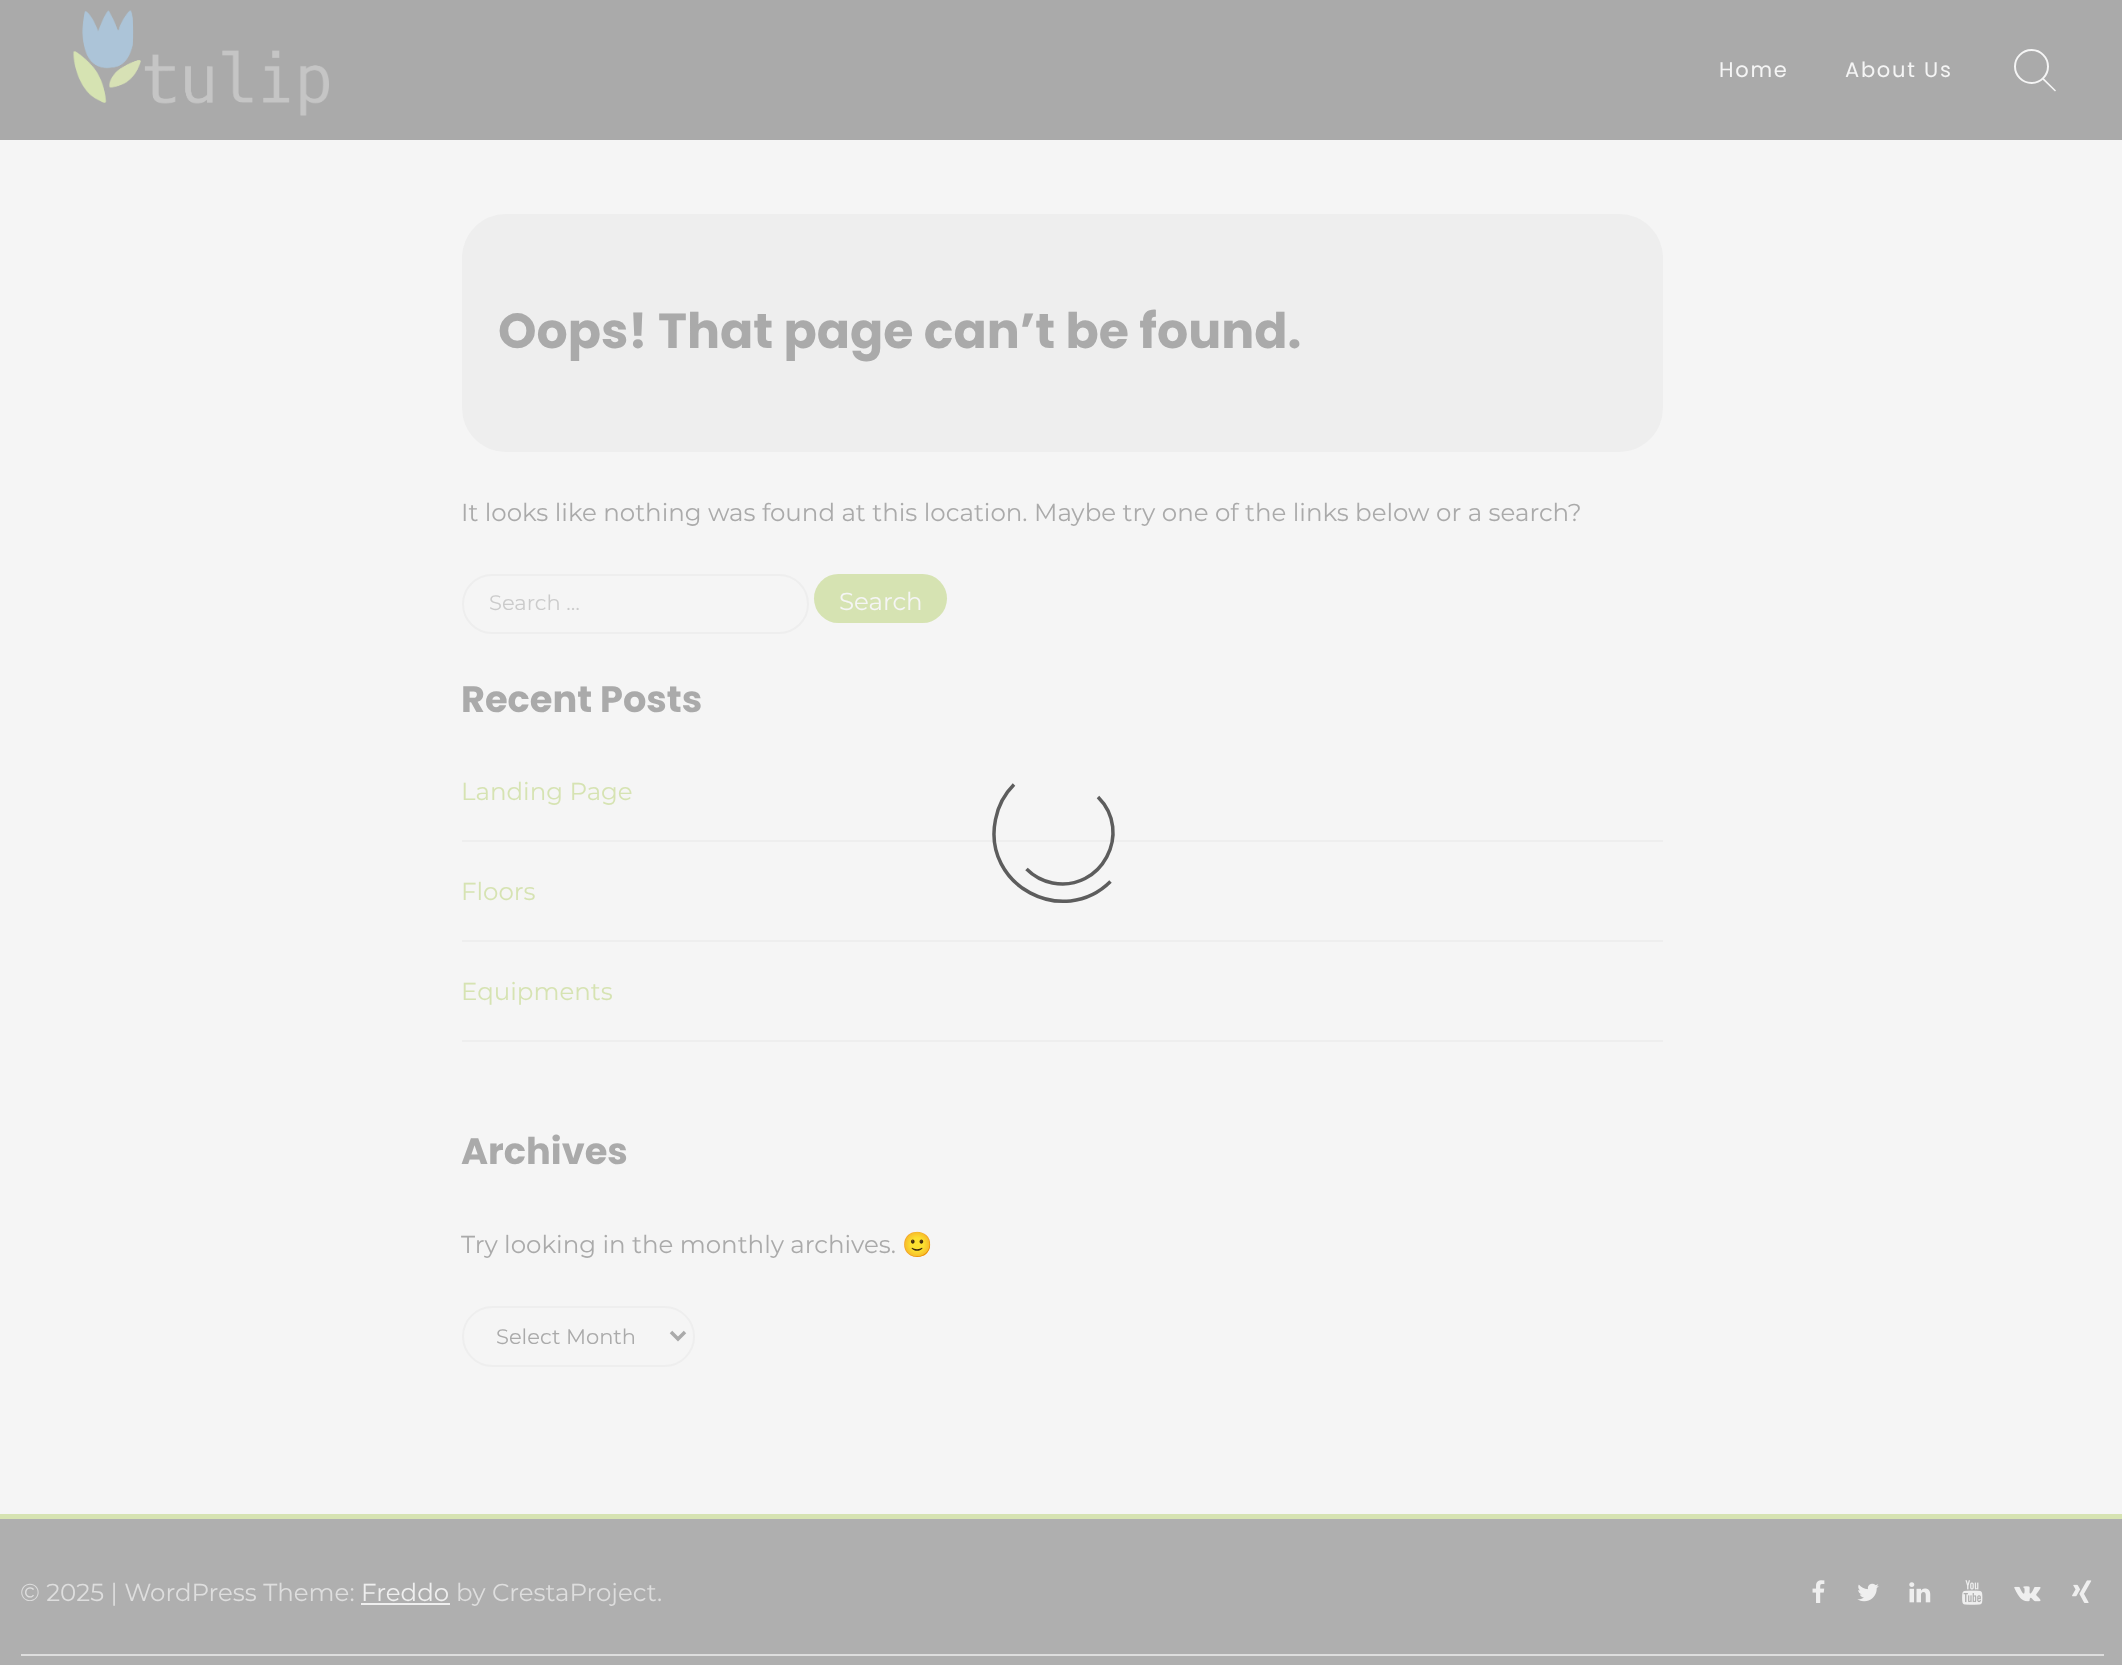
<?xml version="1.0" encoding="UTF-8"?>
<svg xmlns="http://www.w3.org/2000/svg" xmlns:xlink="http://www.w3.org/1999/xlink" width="2122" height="1665">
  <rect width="100%" height="100%" fill="#f5f5f5" />
  <rect width="2122" height="140" fill="#aaaaaa" />
  <image x="73" y="10" width="256" height="106" xlink:href="image1.png" />
  <circle cx="2031.5" cy="66.5" r="16.5" fill="none" stroke="#f5f5f5" stroke-width="2" />
  <path d="M 2043.5 78 l 12.5 12.5 l -1 1 l -12.5 -12 z" fill="#f5f5f5" />
  <rect x="462" y="214" width="1201" height="238" rx="44" fill="#eeeeee" />
  <rect x="463" y="575" width="345" height="58" rx="29" fill="none" stroke="#eeeeee" stroke-width="2" />
  <rect x="814" y="574" width="133" height="49" rx="24.5" fill="#d6e3b2" />
  <rect x="462" y="840" width="1201" height="2" fill="#eeeeee" />
  <rect x="462" y="940" width="1201" height="2" fill="#eeeeee" />
  <rect x="462" y="1040" width="1201" height="2" fill="#eeeeee" />
  <rect x="463" y="1307" width="231" height="59" rx="29.5" fill="none" stroke="#eeeeee" stroke-width="2" />
  <path d="M 671 1332 l 7 7 l 7 -7" fill="none" stroke="#aaaaaa" stroke-width="3.5" />
  <rect y="1519" width="2122" height="146" fill="#afafaf" />
  <rect y="1514" width="2122" height="5" fill="#d6e3b2" />
  <rect x="361" y="1603" width="89" height="2" fill="#efefef" />
  <image x="1812" y="1580" width="13" height="23" xlink:href="image2.png" />
  <image x="1857" y="1583" width="22" height="19" xlink:href="image3.png" />
  <image x="1909" y="1582" width="22" height="21" xlink:href="image4.png" />
  <image x="1962" y="1580" width="21" height="25" xlink:href="image5.png" />
  <image x="2014" y="1586" width="27" height="16" xlink:href="image6.png" />
  <image x="2072" y="1580" width="20" height="23" xlink:href="image7.png" />
  <rect x="21" y="1654" width="2083" height="2" fill="#dedede" />
  <path d="M 1110.5 881.5 c -47.5 47 -128.5 4 -115 -62 c 2.5 -13 9 -25.5 18.5 -35" fill="none" stroke="#121212" stroke-opacity="0.67" stroke-width="3.5" />
  <path d="M 1098 797 c 35.5 35.5 3 95.5 -45.5 86 c -10 -2 -19 -7 -26 -14" fill="none" stroke="#121212" stroke-opacity="0.67" stroke-width="3.5" />
  <text x="1719" y="77" style="font-family: Poppins; font-size: 21px; letter-spacing: 1.75px; fill: #f5f5f5">Home</text>
  <text x="1845" y="77" style="font-family: Poppins; font-size: 21px; letter-spacing: 1.75px; fill: #f5f5f5">About Us</text>
  <text x="498" y="348" style="font-family: Poppins; font-size: 49px; font-weight: bold; fill: #aaaaaa">Oops! That page can’t be found.</text>
  <text x="461" y="521" style="font-family: Montserrat; font-size: 24.5px; fill: #aaaaaa">It looks like nothing was found at this location. Maybe try one of the links below or a search?</text>
  <text x="489" y="610" style="font-family: Montserrat; font-size: 21px; fill: #cbcbcb">Search …</text>
  <text x="839" y="610" style="font-family: Montserrat; font-size: 24.5px; fill: #f5f5f5">Search</text>
  <text x="461" y="712" style="font-family: Poppins; font-size: 36.75px; font-weight: bold; fill: #aaaaaa">Recent Posts</text>
  <text x="461" y="800" style="font-family: Montserrat; font-size: 24.5px; fill: #d6e3b2">Landing Page</text>
  <text x="461" y="900" style="font-family: Montserrat; font-size: 24.5px; fill: #d6e3b2">Floors</text>
  <text x="461" y="1000" style="font-family: Montserrat; font-size: 24.5px; fill: #d6e3b2">Equipments</text>
  <text x="461" y="1164" style="font-family: Poppins; font-size: 36.75px; font-weight: bold; fill: #aaaaaa">Archives</text>
  <text x="461" y="1253" style="font-family: Montserrat; font-size: 24.5px; fill: #aaaaaa">Try looking in the monthly archives.</text>
  <text x="902" y="1253" style="font-family: Noto Color Emoji; font-size: 24.5px; fill: #aaaaaa">🙂</text>
  <text x="496" y="1344" style="font-family: Montserrat; font-size: 21px; fill: #aaaaaa">Select Month</text>
  <text x="20" y="1601" style="font-family: Montserrat; font-size: 24.5px; fill: #dedede">© 2025 | WordPress Theme:</text>
  <text x="361" y="1601" style="font-family: Montserrat; font-size: 24.5px; fill: #efefef">Freddo</text>
  <text x="456" y="1601" style="font-family: Montserrat; font-size: 24.5px; fill: #dedede">by CrestaProject.</text>
</svg>
